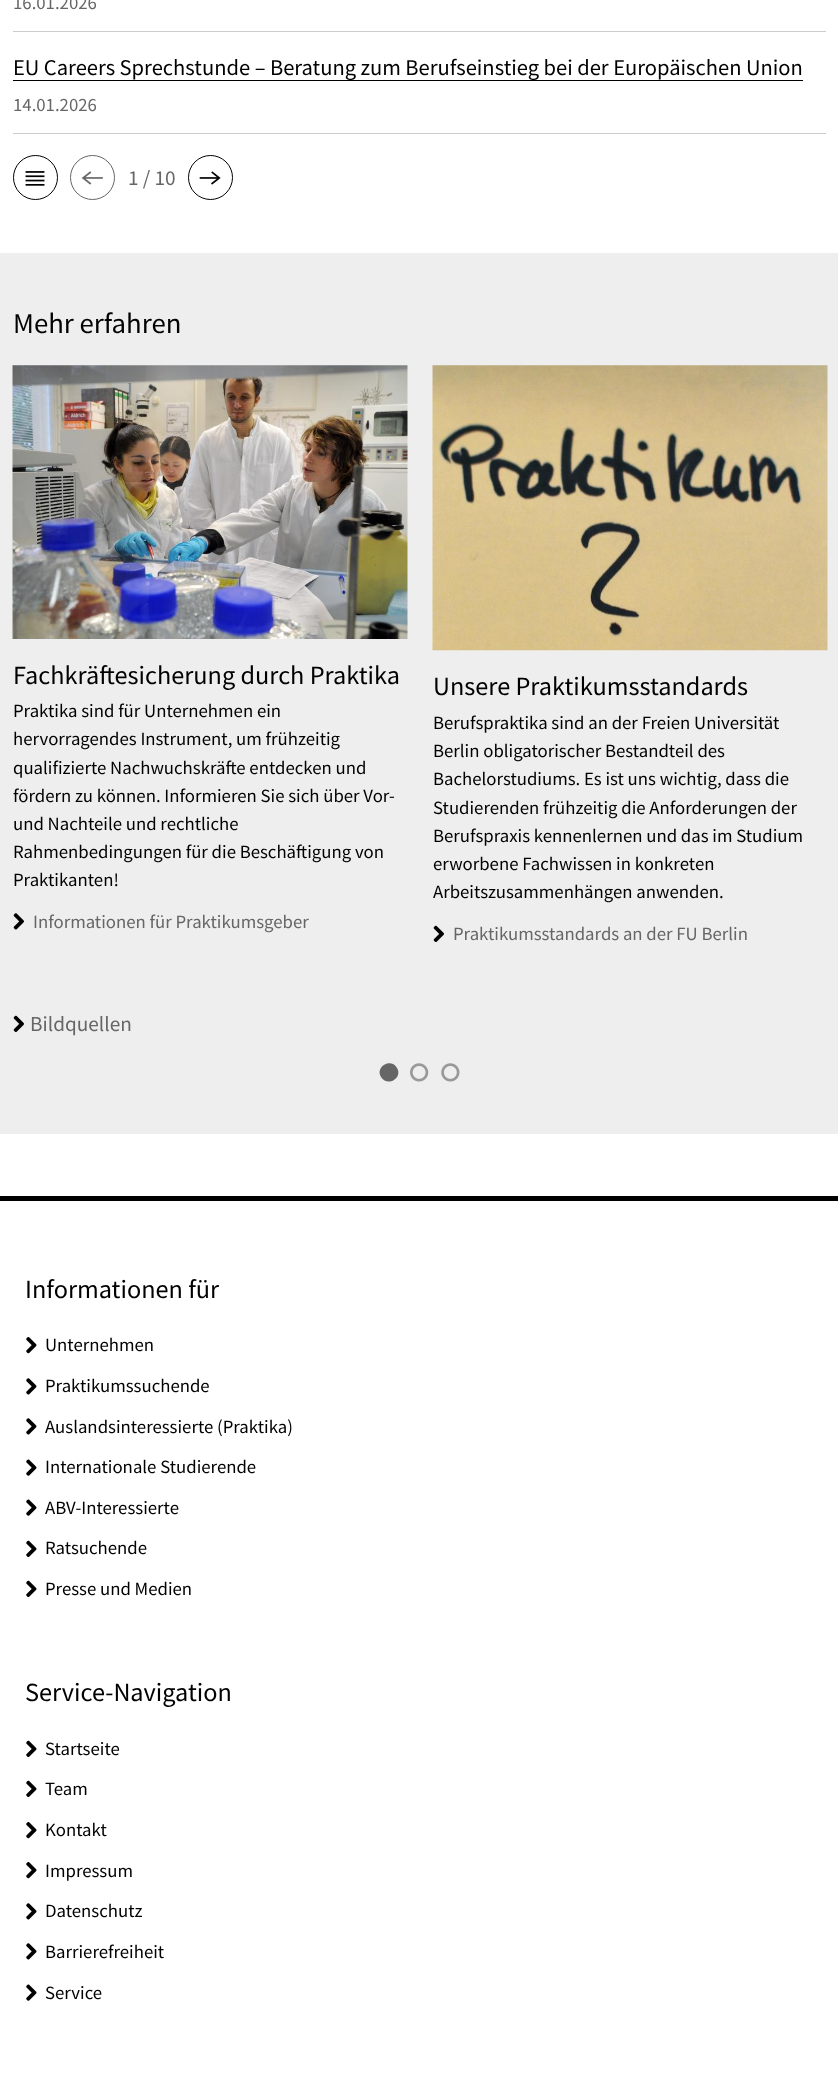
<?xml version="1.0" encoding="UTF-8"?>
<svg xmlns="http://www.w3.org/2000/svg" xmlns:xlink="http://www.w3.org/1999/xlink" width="838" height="2091">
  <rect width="100%" height="100%" fill="#ffffff" />
  <rect x="13" y="31" width="813" height="1" fill="#cccccc" />
  <rect x="13" y="133" width="813" height="1" fill="#cccccc" />
  <rect x="13" y="80" width="790" height="1" fill="#000000" />
  <circle cx="35.5" cy="177.5" r="22" fill="none" stroke="#000000" />
  <image x="25" y="171" width="20" height="15" xlink:href="image1.png" />
  <circle cx="92.5" cy="177.5" r="22" fill="none" stroke="#666666" />
  <image x="81" y="171" width="22" height="14" xlink:href="image2.png" />
  <circle cx="210.5" cy="177.5" r="22" fill="none" stroke="#000000" />
  <image x="199" y="171" width="22" height="14" xlink:href="image3.png" />
  <rect y="253" width="838" height="881" fill="#eeeeee" />
  <image x="12" y="365" width="396" height="274" xlink:href="image4.png" />
  <image x="13" y="913" width="11" height="17" xlink:href="image5.png" />
  <image x="432" y="365" width="396" height="286" xlink:href="image6.png" />
  <image x="433" y="925" width="11" height="17" xlink:href="image7.png" />
  <image x="13" y="1015" width="11" height="17" xlink:href="image7.png" />
  <path d="M 397 1068 c 6 10 -9.5 19.5 -16 9 c -6 -10.5 10 -19.5 16 -9 z" fill="#666666" />
  <image x="410" y="1063" width="19" height="19" xlink:href="image8.png" />
  <image x="441" y="1063" width="19" height="19" xlink:href="image9.png" />
  <rect y="1196" width="838" height="5" fill="#000000" />
  <image x="26" y="1337" width="11" height="17" xlink:href="image10.png" />
  <image x="26" y="1378" width="11" height="17" xlink:href="image11.png" />
  <image x="26" y="1418" width="11" height="17" xlink:href="image11.png" />
  <image x="26" y="1459" width="11" height="17" xlink:href="image12.png" />
  <image x="26" y="1499" width="11" height="17" xlink:href="image12.png" />
  <image x="26" y="1540" width="11" height="17" xlink:href="image13.png" />
  <image x="26" y="1580" width="11" height="17" xlink:href="image13.png" />
  <image x="26" y="1740" width="11" height="17" xlink:href="image13.png" />
  <image x="26" y="1780" width="11" height="17" xlink:href="image13.png" />
  <image x="26" y="1822" width="11" height="17" xlink:href="image10.png" />
  <image x="26" y="1862" width="11" height="17" xlink:href="image10.png" />
  <image x="26" y="1903" width="11" height="17" xlink:href="image11.png" />
  <image x="26" y="1943" width="11" height="17" xlink:href="image11.png" />
  <image x="26" y="1984" width="11" height="17" xlink:href="image12.png" />
  <text x="13" y="9" style="font-family: Source Sans Pro; font-size: 18.75px; fill: #666666">16.01.2026</text>
  <text x="13" y="75" style="font-family: Source Sans Pro; font-size: 22.5px; fill: #000000">EU Careers Sprechstunde – Beratung zum Berufseinstieg bei der Europäischen Union</text>
  <text x="13" y="111" style="font-family: Source Sans Pro; font-size: 18.75px; fill: #666666">14.01.2026</text>
  <text x="128" y="185" style="font-family: Source Sans Pro; font-size: 21.25px; fill: #666666">1 / 10</text>
  <text x="13" y="333" style="font-family: Source Sans Pro; font-size: 28.75px; fill: #000000">Mehr erfahren</text>
  <text x="13" y="684" style="font-family: Source Sans Pro; font-size: 26.25px; fill: #000000">Fachkräftesicherung durch Praktika</text>
  <text x="13" y="717" style="font-family: Source Sans Pro; font-size: 18.75px; fill: #000000">Praktika sind für Unternehmen ein</text>
  <text x="13" y="745" style="font-family: Source Sans Pro; font-size: 18.75px; fill: #000000">hervorragendes Instrument, um frühzeitig</text>
  <text x="13" y="774" style="font-family: Source Sans Pro; font-size: 18.75px; fill: #000000">qualifizierte Nachwuchskräfte entdecken und</text>
  <text x="13" y="802" style="font-family: Source Sans Pro; font-size: 18.75px; fill: #000000">fördern zu können. Informieren Sie sich über Vor-</text>
  <text x="13" y="830" style="font-family: Source Sans Pro; font-size: 18.75px; fill: #000000">und Nachteile und rechtliche</text>
  <text x="13" y="858" style="font-family: Source Sans Pro; font-size: 18.75px; fill: #000000">Rahmenbedingungen für die Beschäftigung von</text>
  <text x="13" y="886" style="font-family: Source Sans Pro; font-size: 18.75px; fill: #000000">Praktikanten!</text>
  <text x="33" y="928" style="font-family: Source Sans Pro; font-size: 18.75px; fill: #666666">Informationen für Praktikumsgeber</text>
  <text x="433" y="695" style="font-family: Source Sans Pro; font-size: 26.25px; fill: #000000">Unsere Praktikumsstandards</text>
  <text x="433" y="729" style="font-family: Source Sans Pro; font-size: 18.75px; fill: #000000">Berufspraktika sind an der Freien Universität</text>
  <text x="433" y="757" style="font-family: Source Sans Pro; font-size: 18.75px; fill: #000000">Berlin obligatorischer Bestandteil des</text>
  <text x="433" y="785" style="font-family: Source Sans Pro; font-size: 18.75px; fill: #000000">Bachelorstudiums. Es ist uns wichtig, dass die</text>
  <text x="433" y="814" style="font-family: Source Sans Pro; font-size: 18.75px; fill: #000000">Studierenden frühzeitig die Anforderungen der</text>
  <text x="433" y="842" style="font-family: Source Sans Pro; font-size: 18.75px; fill: #000000">Berufspraxis kennenlernen und das im Studium</text>
  <text x="433" y="870" style="font-family: Source Sans Pro; font-size: 18.75px; fill: #000000">erworbene Fachwissen in konkreten</text>
  <text x="433" y="898" style="font-family: Source Sans Pro; font-size: 18.75px; fill: #000000">Arbeitszusammenhängen anwenden.</text>
  <text x="453" y="940" style="font-family: Source Sans Pro; font-size: 18.75px; fill: #666666">Praktikumsstandards an der FU Berlin</text>
  <text x="30" y="1031" style="font-family: Source Sans Pro; font-size: 21.25px; fill: #666666">Bildquellen</text>
  <text x="25" y="1298" style="font-family: Source Sans Pro; font-size: 26.25px; fill: #000000">Informationen für</text>
  <text x="45" y="1351" style="font-family: Source Sans Pro; font-size: 18.75px; fill: #000000">Unternehmen</text>
  <text x="45" y="1392" style="font-family: Source Sans Pro; font-size: 18.75px; fill: #000000">Praktikumssuchende</text>
  <text x="45" y="1433" style="font-family: Source Sans Pro; font-size: 18.75px; fill: #000000">Auslandsinteressierte (Praktika)</text>
  <text x="45" y="1473" style="font-family: Source Sans Pro; font-size: 18.75px; fill: #000000">Internationale Studierende</text>
  <text x="45" y="1514" style="font-family: Source Sans Pro; font-size: 18.75px; fill: #000000">ABV-Interessierte</text>
  <text x="45" y="1554" style="font-family: Source Sans Pro; font-size: 18.75px; fill: #000000">Ratsuchende</text>
  <text x="45" y="1595" style="font-family: Source Sans Pro; font-size: 18.75px; fill: #000000">Presse und Medien</text>
  <text x="25" y="1701" style="font-family: Source Sans Pro; font-size: 26.25px; fill: #000000">Service-Navigation</text>
  <text x="45" y="1755" style="font-family: Source Sans Pro; font-size: 18.75px; fill: #000000">Startseite</text>
  <text x="45" y="1795" style="font-family: Source Sans Pro; font-size: 18.75px; fill: #000000">Team</text>
  <text x="45" y="1836" style="font-family: Source Sans Pro; font-size: 18.75px; fill: #000000">Kontakt</text>
  <text x="45" y="1877" style="font-family: Source Sans Pro; font-size: 18.75px; fill: #000000">Impressum</text>
  <text x="45" y="1917" style="font-family: Source Sans Pro; font-size: 18.75px; fill: #000000">Datenschutz</text>
  <text x="45" y="1958" style="font-family: Source Sans Pro; font-size: 18.75px; fill: #000000">Barrierefreiheit</text>
  <text x="45" y="1999" style="font-family: Source Sans Pro; font-size: 18.75px; fill: #000000">Service</text>
</svg>
